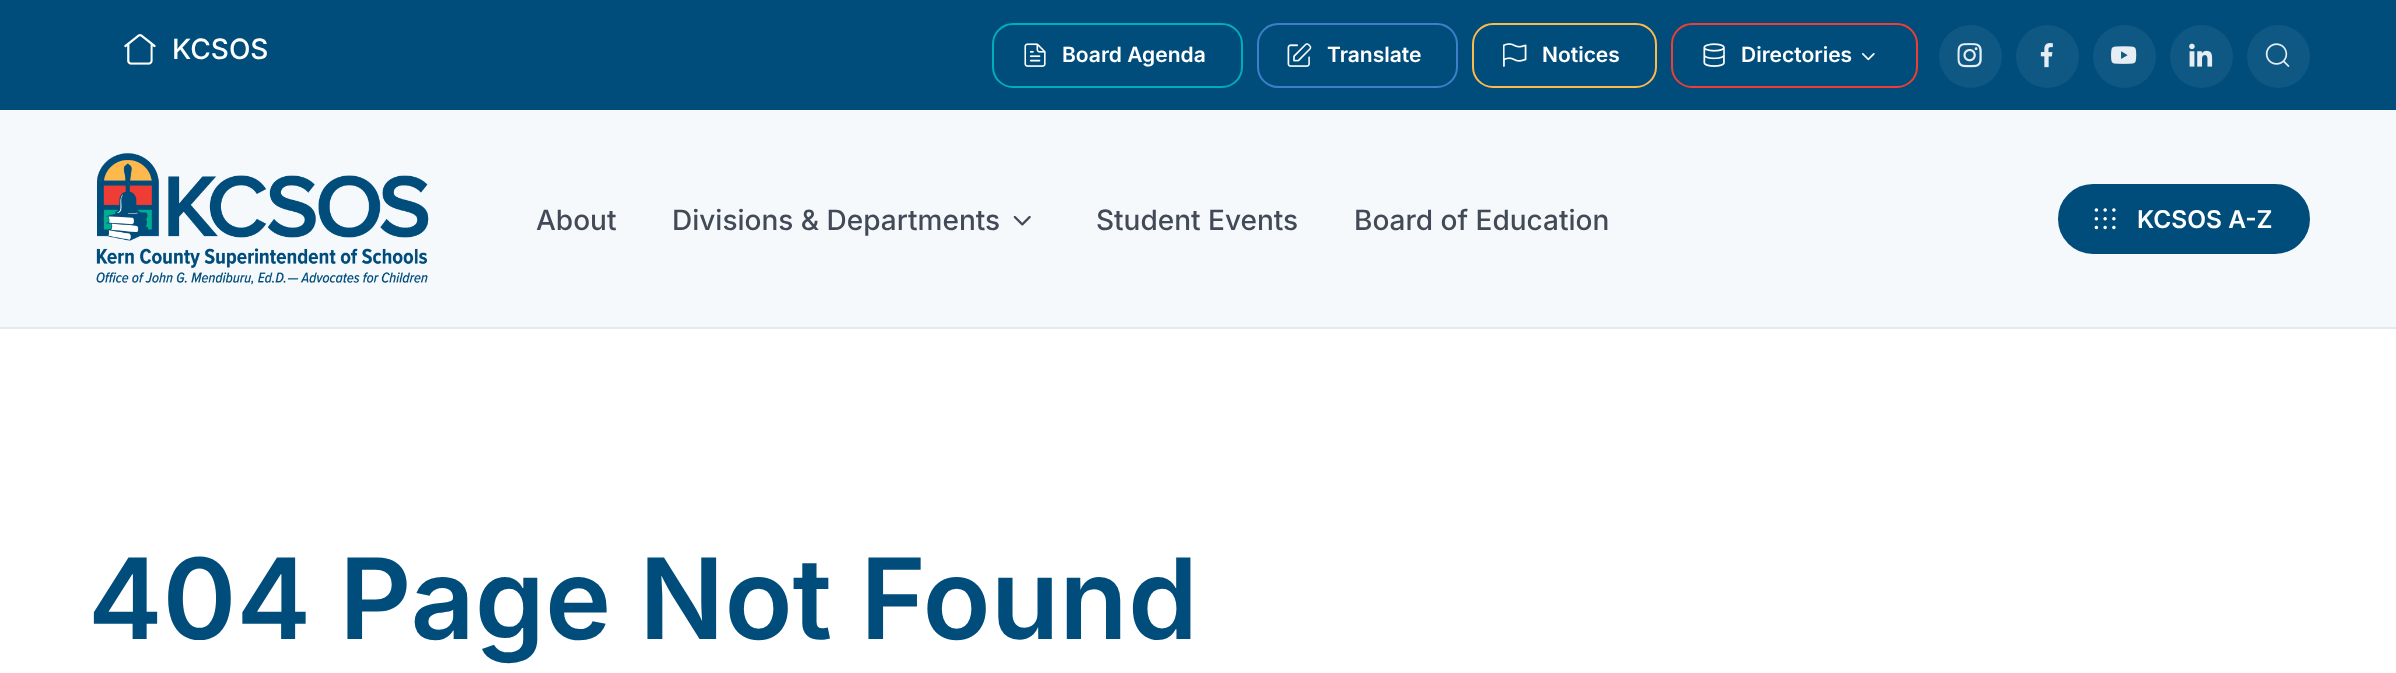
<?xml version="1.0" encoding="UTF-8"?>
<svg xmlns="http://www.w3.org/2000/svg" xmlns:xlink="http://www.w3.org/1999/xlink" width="2396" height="673">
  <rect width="100%" height="100%" fill="#ffffff" />
  <rect width="2396" height="110" fill="#004d7c" />
  <image x="124" y="34" width="32" height="31" xlink:href="image1.png" />
  <rect x="993" y="24" width="249" height="63" rx="20" fill="none" stroke="#00adbe" stroke-width="2" />
  <image x="1024" y="43" width="22" height="24" xlink:href="image2.png" />
  <rect x="1258" y="24" width="199" height="63" rx="20" fill="none" stroke="#3f7fca" stroke-width="2" />
  <image x="1287" y="43" width="25" height="24" xlink:href="image3.png" />
  <rect x="1473" y="24" width="183" height="63" rx="20" fill="none" stroke="#fdba4d" stroke-width="2" />
  <image x="1503" y="43" width="24" height="24" xlink:href="image4.png" />
  <rect x="1672" y="24" width="245" height="63" rx="20" fill="none" stroke="#ef3e33" stroke-width="2" />
  <image x="1703" y="43" width="22" height="24" xlink:href="image5.png" />
  <image x="1861" y="53" width="14" height="8" xlink:href="image6.png" />
  <circle cx="1970.5" cy="56.5" r="31.5" fill="#0f5884" />
  <image x="1957" y="43" width="25" height="25" xlink:href="image7.png" />
  <circle cx="2047.5" cy="56.5" r="31.5" fill="#0f5884" />
  <image x="2040" y="43" width="13" height="25" xlink:href="image8.png" />
  <circle cx="2124.5" cy="56.5" r="31.5" fill="#0f5884" />
  <image x="2111" y="46" width="26" height="18" xlink:href="image9.png" />
  <circle cx="2201.5" cy="56.5" r="31.5" fill="#0f5884" />
  <image x="2189" y="43" width="24" height="24" xlink:href="image10.png" />
  <circle cx="2278.5" cy="56.5" r="31.5" fill="#0f5884" />
  <image x="2265" y="43" width="25" height="24" xlink:href="image11.png" />
  <rect y="110" width="2396" height="217" fill="#f6f9fc" />
  <rect y="327" width="2396" height="2" fill="#e3e9ef" />
  <image x="96" y="153" width="333" height="132" xlink:href="image12.png" />
  <image x="1013" y="215" width="18" height="11" xlink:href="image13.png" />
  <rect x="2059" y="185" width="250" height="68" rx="34" fill="#004d7c" stroke="#004d7c" stroke-width="2" />
  <image x="2094" y="208" width="22" height="22" xlink:href="image14.png" />
  <text x="172" y="59" style="font-family: Inter; font-size: 28px; font-weight: 500; fill: #ffffff">KCSOS</text>
  <text x="1062" y="62" style="font-family: Inter; font-size: 21px; font-weight: 600; fill: #ffffff">Board Agenda</text>
  <text x="1327" y="62" style="font-family: Inter; font-size: 21px; font-weight: 600; fill: #ffffff">Translate</text>
  <text x="1542" y="62" style="font-family: Inter; font-size: 21px; font-weight: 600; fill: #ffffff">Notices</text>
  <text x="1741" y="62" style="font-family: Inter; font-size: 21px; font-weight: 600; fill: #ffffff">Directories</text>
  <text x="536" y="230" style="font-family: Inter; font-size: 28px; font-weight: 500; fill: #434a57">About</text>
  <text x="672" y="230" style="font-family: Inter; font-size: 28px; font-weight: 500; fill: #434a57">Divisions &amp; Departments</text>
  <text x="1096" y="230" style="font-family: Inter; font-size: 28px; font-weight: 500; fill: #434a57">Student Events</text>
  <text x="1354" y="230" style="font-family: Inter; font-size: 28px; font-weight: 500; fill: #434a57">Board of Education</text>
  <text x="2137" y="228" style="font-family: Inter; font-size: 24.5px; font-weight: 600; fill: #ffffff">KCSOS A-Z</text>
  <text x="88" y="639" style="font-family: Inter; font-size: 112px; font-weight: 600; fill: #004d7c">404 Page Not Found</text>
</svg>
